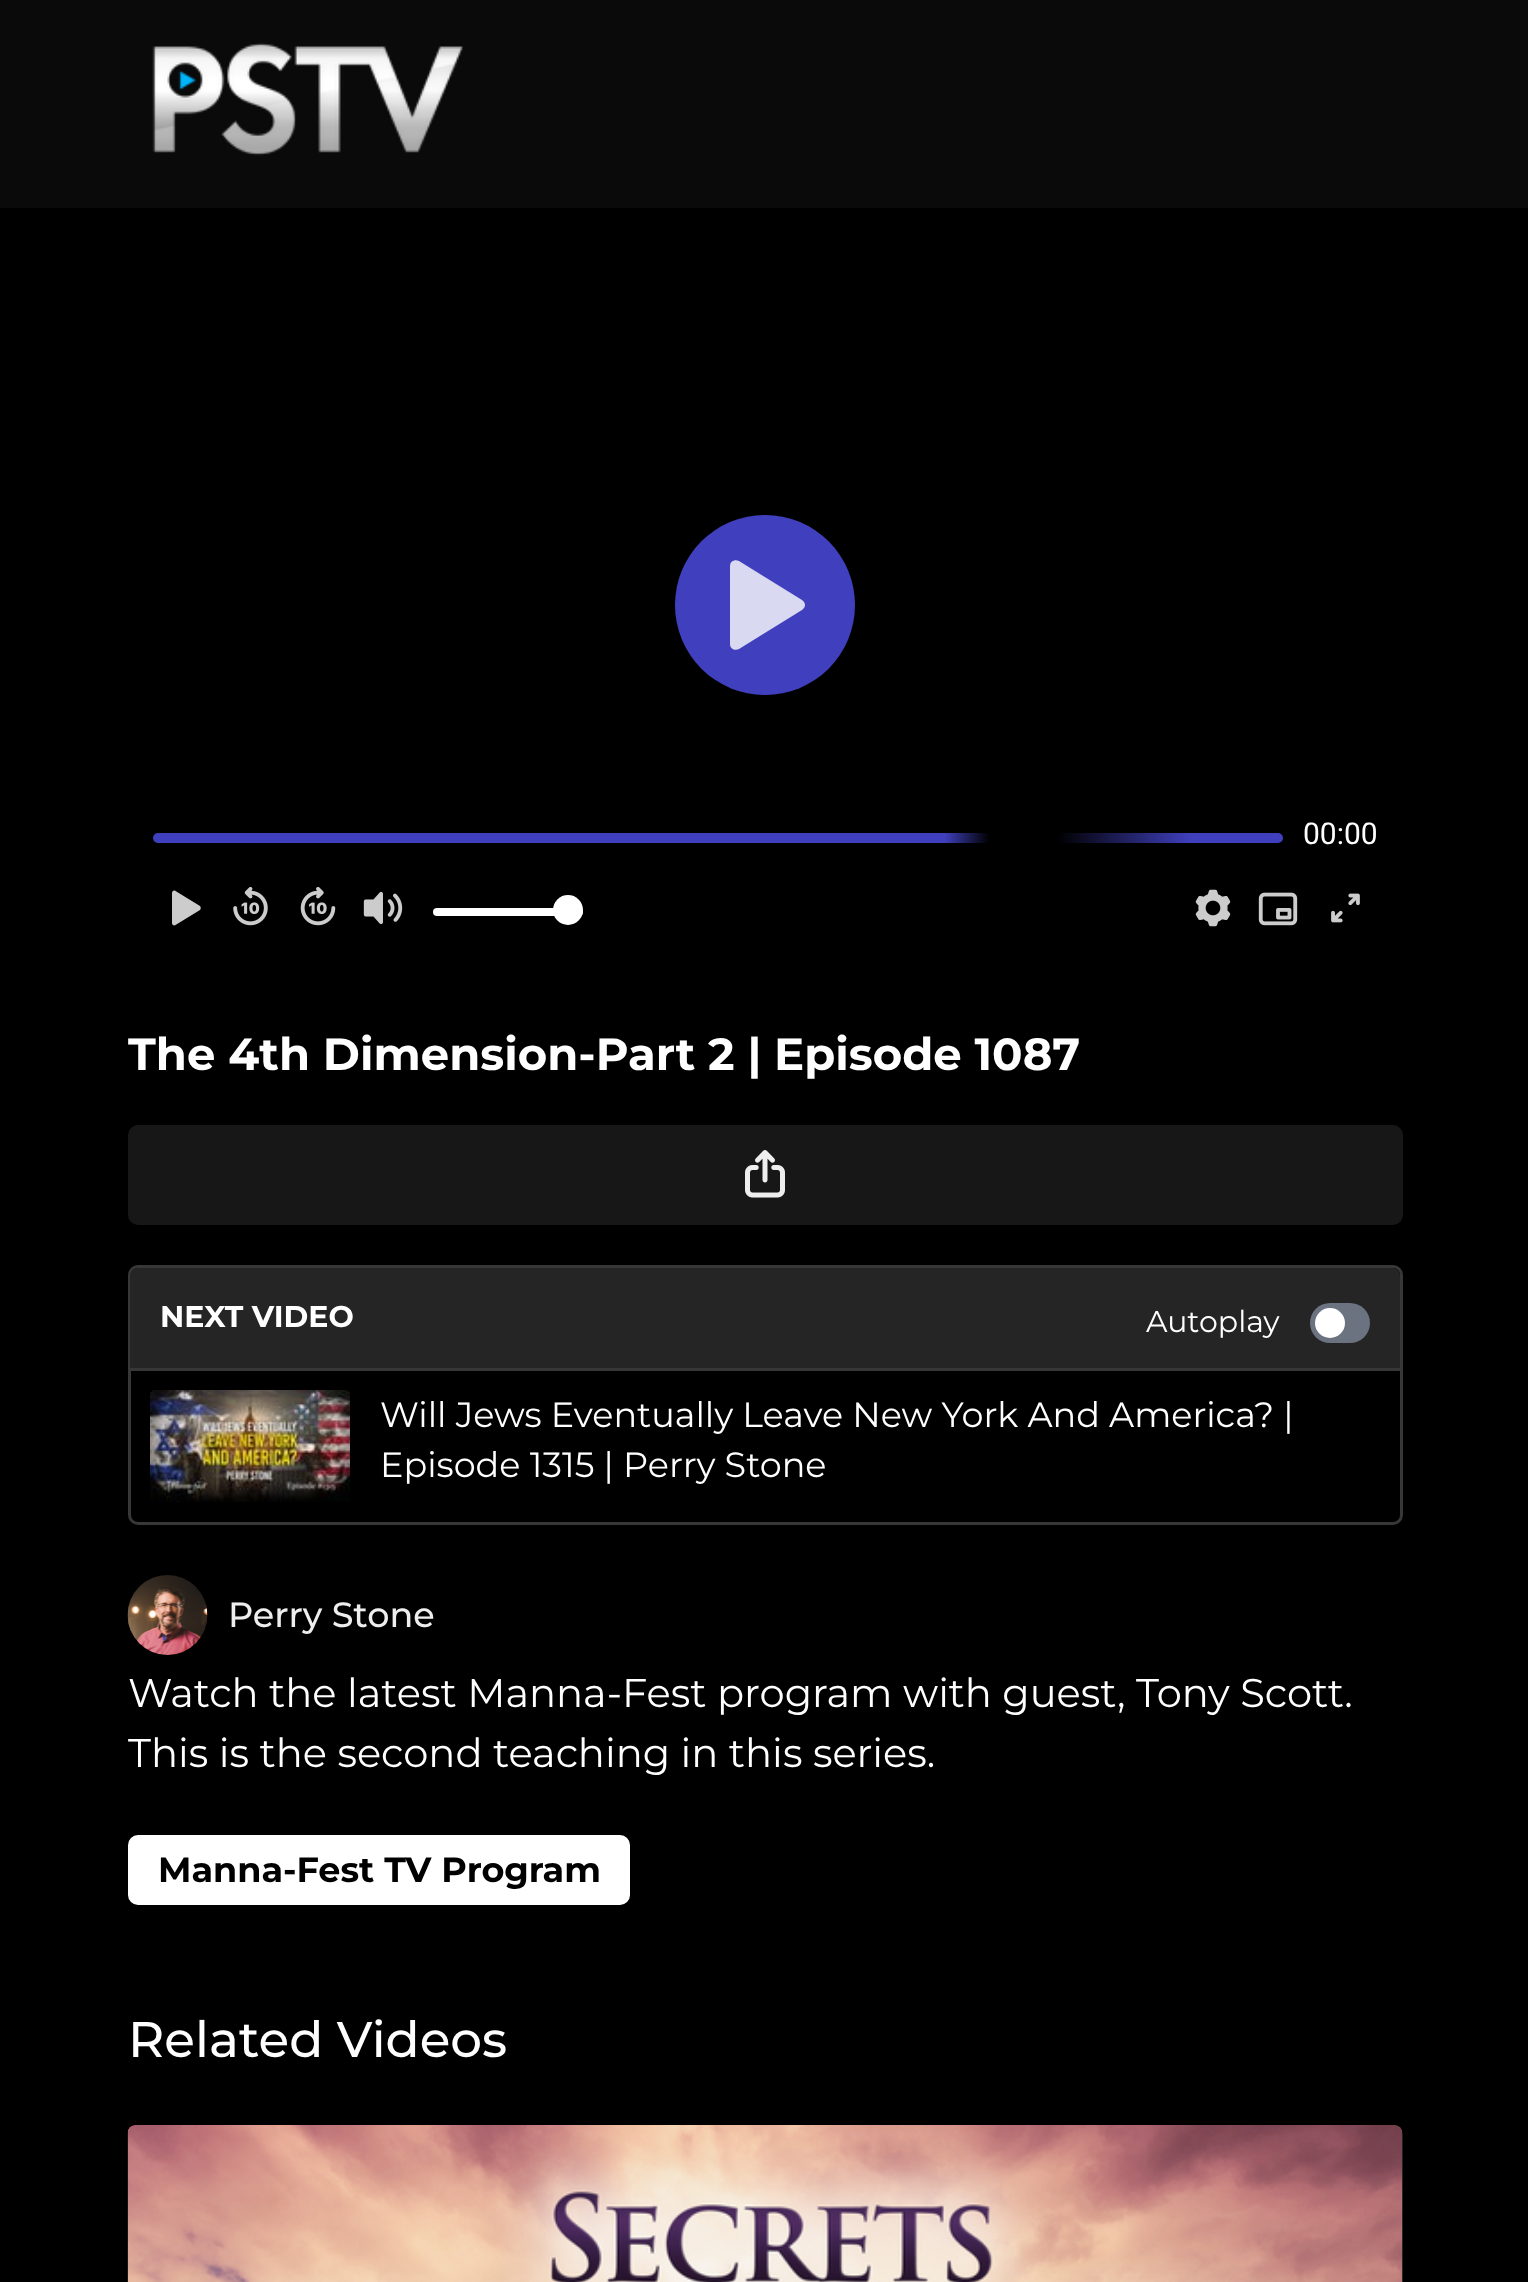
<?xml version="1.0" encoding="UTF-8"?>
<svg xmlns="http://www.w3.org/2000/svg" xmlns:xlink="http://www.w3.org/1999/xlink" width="1528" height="2282">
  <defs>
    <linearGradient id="g1" gradientUnits="userSpaceOnUse" x1="153" y1="843" x2="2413" y2="843"><stop offset="0.35" stop-color="#4040bf" /><stop offset="0.37" stop-color="#000000" /><stop offset="0.4" stop-color="#000000" /><stop offset="0.46" stop-color="#4040bf" /><stop offset="1" stop-color="#4040bf" /></linearGradient>
    <linearGradient id="g2" gradientUnits="userSpaceOnUse" x1="128" y1="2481" x2="1403" y2="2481"><stop offset="0.08" stop-color="#212121" /><stop offset="0.18" stop-color="#1f1f1f" /><stop offset="0.33" stop-color="#1c1c1c" /></linearGradient>
  </defs>
  <rect width="100%" height="100%" fill="#000000" />
  <rect width="1528" height="208" fill="#0b0a0a" />
  <image x="152" y="42" width="312" height="114" xlink:href="image1.png" />
  <circle cx="765" cy="605" r="90" fill="#4040bf" />
  <path d="M 739 561 c -4 -2 -9 0 -9 5 v 78 c 0 5 5 7 9 5 l 63 -39 c 4 -3 4 -7 0 -10 z" fill="#d9d9f2" />
  <rect x="153" y="833" width="1130" height="10" rx="5" fill="url(#g1)" />
  <path d="M 175.5 891 c -1.5 -1 -3.5 0 -3.5 2 v 30 c 0 2 2 3 3.5 2 l 24.5 -15 c 1 -1 1 -3 0 -4 z" fill="#cccccc" />
  <image x="233" y="886" width="35" height="40" xlink:href="image2.png" />
  <image x="300" y="887" width="36" height="39" xlink:href="image3.png" />
  <image x="363" y="891" width="40" height="33" xlink:href="image4.png" />
  <rect x="433" y="908" width="150" height="8" rx="4" fill="#ffffff" />
  <circle cx="568" cy="910" r="15" fill="#ffffff" />
  <image x="1195" y="889" width="36" height="38" xlink:href="image5.png" />
  <image x="1258" y="892" width="40" height="34" xlink:href="image6.png" />
  <image x="1331" y="893" width="29" height="30" xlink:href="image7.png" />
  <rect x="128" y="1125" width="1275" height="100" rx="10" fill="#171717" />
  <image x="745" y="1150" width="40" height="48" xlink:href="image8.png" />
  <rect x="129.5" y="1266.5" width="1272" height="257" rx="8.5" fill="none" stroke="#373737" stroke-width="3" />
  <path d="M 138 1268 h 1254 c 4.5 0 8 3.5 8 8 v 92 h -1270 v -92 c 0 -4.5 3.5 -8 8 -8 z" fill="#252525" />
  <rect x="130" y="1368" width="1270" height="3" fill="#373737" />
  <rect x="1310" y="1303" width="60" height="40" rx="20" fill="#6b7280" />
  <circle cx="1330" cy="1323" r="15" fill="#ffffff" />
  <image x="150" y="1390" width="200" height="112" xlink:href="image9.png" />
  <image x="127" y="1575" width="81" height="80" xlink:href="image10.png" />
  <rect x="128" y="1835" width="502" height="70" rx="10" fill="#ffffff" />
  <rect x="128" y="2125" width="1275" height="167" rx="10" fill="url(#g2)" />
  <image x="127" y="2125" width="1276" height="157" xlink:href="image11.png" />
  <text x="1303" y="844" style="font-family: Roboto; font-size: 30px; fill: #ffffff">00:00</text>
  <text x="128" y="1070" style="font-family: Montserrat; font-size: 45px; font-weight: bold; fill: #ffffff">The 4th Dimension-Part 2 | Episode 1087</text>
  <text x="160" y="1327" style="font-family: Montserrat; font-size: 30px; font-weight: bold; fill: #ffffff">NEXT VIDEO</text>
  <text x="1146" y="1332" style="font-family: Montserrat; font-size: 30px; fill: #ffffff">Autoplay</text>
  <text x="380" y="1427" style="font-family: Montserrat; font-size: 35px; fill: #ffffff">Will Jews Eventually Leave New York And America? |</text>
  <text x="380" y="1477" style="font-family: Montserrat; font-size: 35px; fill: #ffffff">Episode 1315 | Perry Stone</text>
  <text x="228" y="1627" style="font-family: Montserrat; font-size: 35px; font-weight: 500; fill: #eeeeee">Perry Stone</text>
  <text x="128" y="1707" style="font-family: Montserrat; font-size: 40px; fill: #ffffff">Watch the latest Manna-Fest program with guest, Tony Scott.</text>
  <text x="128" y="1767" style="font-family: Montserrat; font-size: 40px; fill: #ffffff">This is the second teaching in this series.</text>
  <text x="158" y="1882" style="font-family: Montserrat; font-size: 35px; font-weight: bold; fill: #000000">Manna-Fest TV Program</text>
  <text x="128" y="2057" style="font-family: Montserrat; font-size: 50px; font-weight: 500; fill: #ffffff">Related Videos</text>
</svg>
